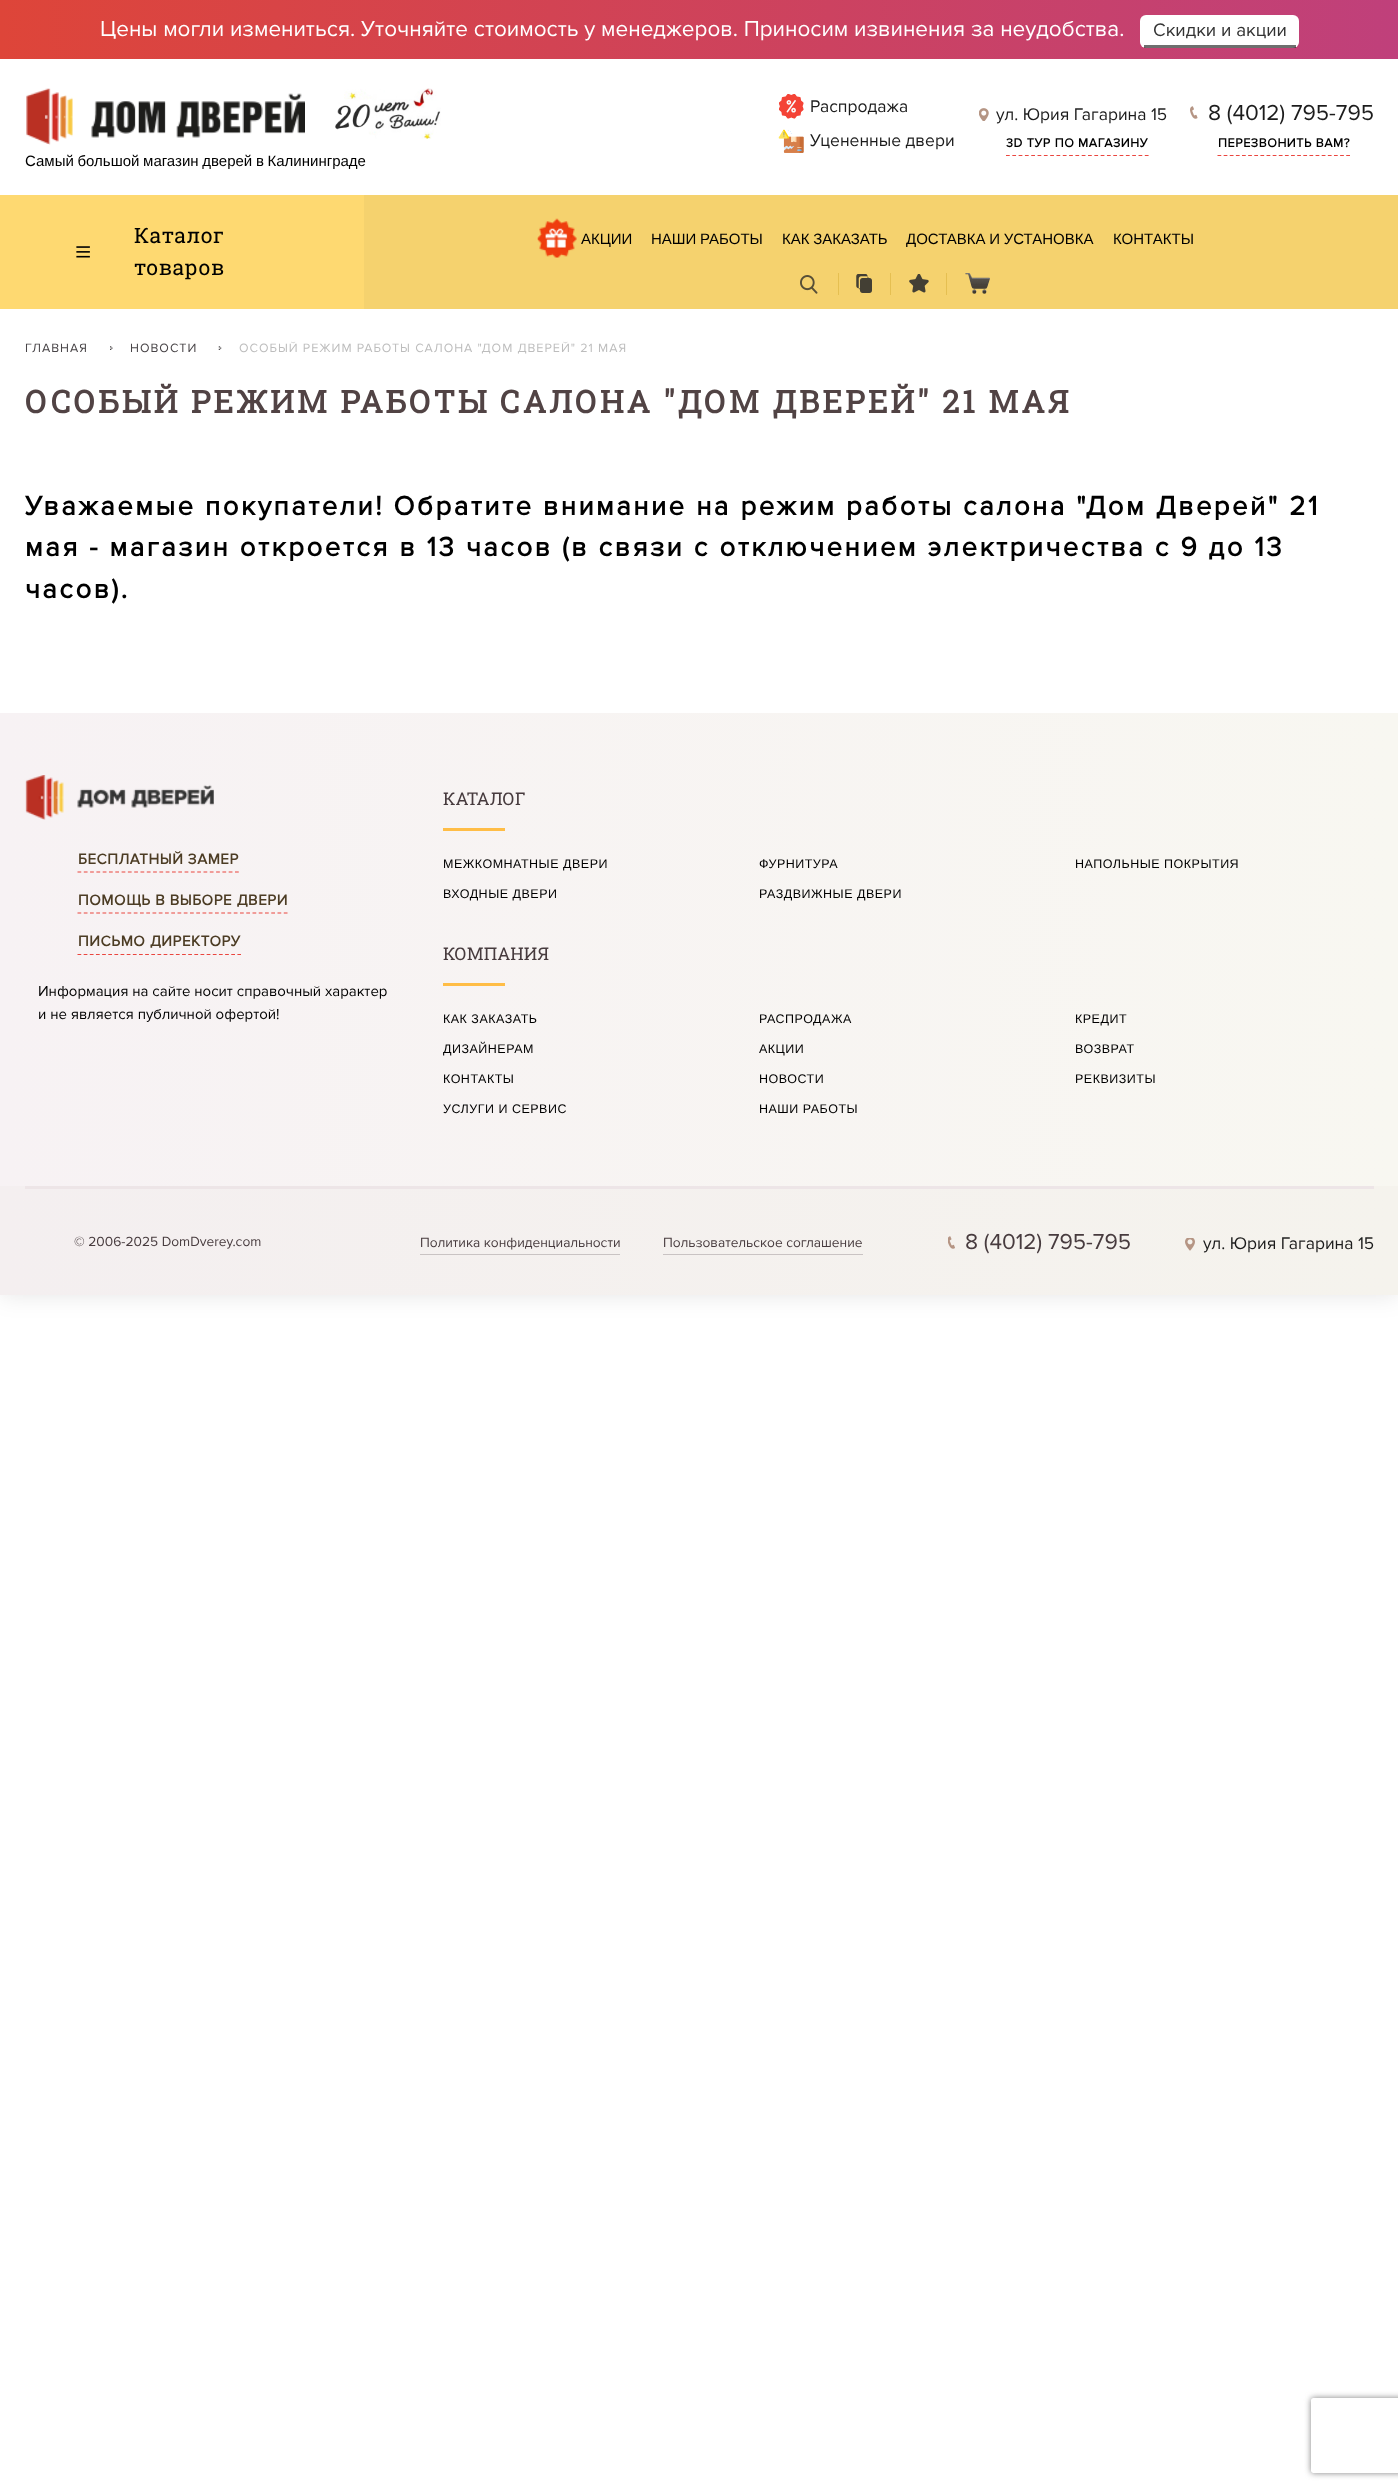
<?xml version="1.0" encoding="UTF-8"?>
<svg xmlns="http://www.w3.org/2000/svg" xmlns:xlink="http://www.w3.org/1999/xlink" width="1398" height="2489">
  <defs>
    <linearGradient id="g1" gradientUnits="userSpaceOnUse" x1="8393" y1="176" x2="0" y2="176"><stop offset="0" stop-color="#1ea528" /><stop offset="0.5" stop-color="#8336ff" /><stop offset="1" stop-color="#de4539" /></linearGradient>
    <linearGradient id="g2" gradientUnits="userSpaceOnUse" x1="0" y1="949" x2="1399" y2="949"><stop offset="0" stop-color="#f7f2f4" /><stop offset="1" stop-color="#f8f7f1" /></linearGradient>
    <linearGradient id="g3" gradientUnits="userSpaceOnUse" x1="0" y1="1241" x2="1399" y2="1241"><stop offset="0" stop-color="#f4eff0" /><stop offset="1" stop-color="#f5f3ed" /></linearGradient>
    <clipPath id="clip1"><path d="M 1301 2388 h 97 v 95 h -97 z m 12.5 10 h 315 c 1.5 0 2.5 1 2.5 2.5 v 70 c 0 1.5 -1 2.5 -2.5 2.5 h -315 c -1.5 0 -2.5 -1 -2.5 -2.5 v -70 c 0 -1.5 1 -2.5 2.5 -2.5 z" clip-rule="evenodd" /></clipPath>
  </defs>
  <rect width="100%" height="100%" fill="#ffffff" />
  <rect width="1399" height="1295" fill="#000000" fill-opacity="0.1" filter="blur(12.5px)" />
  <rect width="1398" height="59" fill="url(#g1)" />
  <rect x="1140" y="15" width="159" height="33" rx="6" fill="#ffffff" />
  <rect x="1144" y="45" width="152" height="3" fill="#000000" fill-opacity="0.57" />
  <rect y="59" width="1398" height="136" fill="#ffffff" />
  <image x="779" y="94" width="25" height="25" xlink:href="image1.png" />
  <image x="778" y="129" width="26" height="24" xlink:href="image2.png" />
  <image x="979" y="108" width="10" height="13" xlink:href="image3.png" />
  <path d="M 1006 155.5 h 143" fill="none" stroke="#ea463f" stroke-width="1.2" stroke-dasharray="3.75 2.56" />
  <image x="1190" y="106" width="8" height="13" xlink:href="image4.png" />
  <path d="M 1217.5 155.5 h 132.5" fill="none" stroke="#ea463f" stroke-width="1.2" stroke-dasharray="3.75 2.38" />
  <image x="26" y="88" width="279" height="57" xlink:href="image5.png" />
  <image x="335" y="88" width="106" height="51" xlink:href="image6.png" />
  <rect y="195" width="364" height="114" fill="#fed971" />
  <image x="76" y="246" width="14" height="12" xlink:href="image7.png" />
  <rect x="364" y="195" width="1034" height="114" fill="#f5d26e" />
  <image x="537" y="218" width="40" height="40" xlink:href="image8.png" />
  <rect x="838" y="273" width="1" height="22" fill="#e5bf51" />
  <image x="800" y="275" width="18" height="19" xlink:href="image9.png" />
  <rect x="890" y="273" width="1" height="22" fill="#e5bf51" />
  <image x="856" y="274" width="16" height="19" xlink:href="image10.png" />
  <rect x="946" y="273" width="1" height="22" fill="#e5bf51" />
  <image x="909" y="274" width="20" height="19" xlink:href="image11.png" />
  <image x="965" y="273" width="25" height="21" xlink:href="image12.png" />
  <rect y="309" width="1398" height="404" fill="#ffffff" />
  <image x="110" y="346" width="3" height="4" xlink:href="image13.png" />
  <image x="218" y="346" width="4" height="4" xlink:href="image14.png" />
  <rect y="713" width="1398" height="473" fill="url(#g2)" />
  <image x="25" y="775" width="189" height="45" xlink:href="image15.png" />
  <path d="M 77.5 872 h 161.5" fill="none" stroke="#ea463f" stroke-width="1.2" stroke-dasharray="3.75 2.55" />
  <path d="M 77.5 913 h 210" fill="none" stroke="#ea463f" stroke-width="1.2" stroke-dasharray="3.75 2.5" />
  <path d="M 77.5 954.5 h 163.5" fill="none" stroke="#ea463f" stroke-width="1.2" stroke-dasharray="3.75 2.4" />
  <rect x="443" y="828" width="62" height="3" fill="#ffbd46" />
  <rect x="443" y="983" width="62" height="3" fill="#ffbd46" />
  <rect y="1186" width="1398" height="109" fill="url(#g3)" />
  <rect x="25" y="1186" width="1349" height="3" fill="#ede5e7" />
  <rect x="420" y="1254" width="200" height="1" fill="#c9c3c3" />
  <rect x="663" y="1254" width="200" height="1" fill="#c9c3c3" />
  <image x="948" y="1236" width="7" height="13" xlink:href="image16.png" />
  <image x="1185" y="1238" width="10" height="13" xlink:href="image17.png" />
  <g clip-path="url(#clip1)">
    <rect x="1311" y="2398" width="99" height="75" rx="2.5" fill="#808080" filter="blur(3px)" />
  </g>
  <text x="100" y="36" style="font-family: Proxima Nova; font-size: 22.5px; fill: #ffffff">Цены могли измениться. Уточняйте стоимость у менеджеров. Приносим извинения за неудобства.</text>
  <text x="1153" y="36" style="font-family: Proxima Nova; font-size: 18.75px; fill: #333333">Скидки и акции</text>
  <text x="810" y="112" style="font-family: Proxima Nova; font-size: 17.5px; fill: #1c1c1c">Распродажа</text>
  <text x="810" y="146" style="font-family: Proxima Nova; font-size: 17.5px; fill: #1c1c1c">Уцененные двери</text>
  <text x="996" y="120" style="font-family: Proxima Nova; font-size: 17.5px; fill: #1c1c1c">ул. Юрия Гагарина 15</text>
  <text x="1006" y="147" style="font-family: Proxima Nova; font-size: 12.5px; font-weight: bold; letter-spacing: 0.6px; fill: #000000">3D ТУР ПО МАГАЗИНУ</text>
  <text x="1208" y="120" style="font-family: Proxima Nova; font-size: 22.5px; fill: #1c1c1c">8 (4012) 795-795</text>
  <text x="1218" y="147" style="font-family: Proxima Nova; font-size: 12.5px; font-weight: bold; letter-spacing: 0.6px; fill: #000000">ПЕРЕЗВОНИТЬ ВАМ?</text>
  <text x="25" y="166" word-spacing="-0.5" style="font-family: Liberation Sans; font-size: 15px; fill: #000000">Самый большой магазин дверей в Калининграде</text>
  <text x="134" y="243" style="font-family: Roboto Slab; font-size: 21.25px; letter-spacing: 0.5px; fill: #000000">Каталог</text>
  <text x="134" y="275" style="font-family: Roboto Slab; font-size: 21.25px; letter-spacing: 0.5px; fill: #000000">товаров</text>
  <text x="581" y="244" style="font-family: Liberation Sans; font-size: 15px; fill: #000000">АКЦИИ</text>
  <text x="651" y="244" word-spacing="-0.5" style="font-family: Liberation Sans; font-size: 15px; fill: #000000">НАШИ РАБОТЫ</text>
  <text x="782" y="244" word-spacing="-0.5" style="font-family: Liberation Sans; font-size: 15px; fill: #000000">КАК ЗАКАЗАТЬ</text>
  <text x="906" y="244" word-spacing="-0.5" style="font-family: Liberation Sans; font-size: 15px; fill: #000000">ДОСТАВКА И УСТАНОВКА</text>
  <text x="1113" y="244" style="font-family: Liberation Sans; font-size: 15px; fill: #000000">КОНТАКТЫ</text>
  <text x="25" y="352" style="font-family: Proxima Nova; font-size: 12.5px; letter-spacing: 1px; fill: #484447">ГЛАВНАЯ</text>
  <text x="130" y="352" style="font-family: Proxima Nova; font-size: 12.5px; letter-spacing: 1px; fill: #484447">НОВОСТИ</text>
  <text x="239" y="352" style="font-family: Proxima Nova; font-size: 12.5px; letter-spacing: 1px; fill: #bdbdbd">ОСОБЫЙ РЕЖИМ РАБОТЫ САЛОНА "ДОМ ДВЕРЕЙ" 21 МАЯ</text>
  <text x="25" y="413" style="font-family: Roboto Slab; font-size: 31.25px; font-weight: bold; letter-spacing: 2.75px; fill: #514344">ОСОБЫЙ РЕЖИМ РАБОТЫ САЛОНА "ДОМ ДВЕРЕЙ" 21 МАЯ</text>
  <text x="25" y="515" style="font-family: Proxima Nova; font-size: 27.5px; font-weight: bold; letter-spacing: 2.5px; fill: #000000">Уважаемые покупатели! Обратите внимание на режим работы салона "Дом Дверей" 21</text>
  <text x="25" y="556" style="font-family: Proxima Nova; font-size: 27.5px; font-weight: bold; letter-spacing: 2.5px; fill: #000000">мая - магазин откроется в 13 часов (в связи с отключением электричества с 9 до 13</text>
  <text x="25" y="598" style="font-family: Proxima Nova; font-size: 27.5px; font-weight: bold; letter-spacing: 2.5px; fill: #000000">часов).</text>
  <text x="78" y="864" style="font-family: Proxima Nova; font-size: 15px; font-weight: bold; letter-spacing: 0.6px; fill: #4c3c24">БЕСПЛАТНЫЙ ЗАМЕР</text>
  <text x="78" y="905" style="font-family: Proxima Nova; font-size: 15px; font-weight: bold; letter-spacing: 0.6px; fill: #4c3c24">ПОМОЩЬ В ВЫБОРЕ ДВЕРИ</text>
  <text x="78" y="946" style="font-family: Proxima Nova; font-size: 15px; font-weight: bold; letter-spacing: 0.6px; fill: #4c3c24">ПИСЬМО ДИРЕКТОРУ</text>
  <text x="38" y="996" style="font-family: Proxima Nova; font-size: 15px; fill: #000000">Информация на сайте носит справочный характер</text>
  <text x="38" y="1019" style="font-family: Proxima Nova; font-size: 15px; fill: #000000">и не является публичной офертой!</text>
  <text x="443" y="805" style="font-family: Roboto Slab; font-size: 17.5px; fill: #473b3e">КАТАЛОГ</text>
  <text x="443" y="868" style="font-family: Liberation Sans; font-size: 12.5px; letter-spacing: 0.5px; fill: #000000">МЕЖКОМНАТНЫЕ ДВЕРИ</text>
  <text x="759" y="868" style="font-family: Liberation Sans; font-size: 12.5px; letter-spacing: 0.5px; fill: #000000">ФУРНИТУРА</text>
  <text x="1075" y="868" style="font-family: Liberation Sans; font-size: 12.5px; letter-spacing: 0.5px; fill: #000000">НАПОЛЬНЫЕ ПОКРЫТИЯ</text>
  <text x="443" y="898" style="font-family: Liberation Sans; font-size: 12.5px; letter-spacing: 0.5px; fill: #000000">ВХОДНЫЕ ДВЕРИ</text>
  <text x="759" y="898" style="font-family: Liberation Sans; font-size: 12.5px; letter-spacing: 0.5px; fill: #000000">РАЗДВИЖНЫЕ ДВЕРИ</text>
  <text x="443" y="960" style="font-family: Roboto Slab; font-size: 17.5px; fill: #473b3e">КОМПАНИЯ</text>
  <text x="443" y="1023" style="font-family: Liberation Sans; font-size: 12.5px; letter-spacing: 0.5px; fill: #000000">КАК ЗАКАЗАТЬ</text>
  <text x="759" y="1023" style="font-family: Liberation Sans; font-size: 12.5px; letter-spacing: 0.5px; fill: #000000">РАСПРОДАЖА</text>
  <text x="1075" y="1023" style="font-family: Liberation Sans; font-size: 12.5px; letter-spacing: 0.5px; fill: #000000">КРЕДИТ</text>
  <text x="443" y="1053" style="font-family: Liberation Sans; font-size: 12.5px; letter-spacing: 0.5px; fill: #000000">ДИЗАЙНЕРАМ</text>
  <text x="759" y="1053" style="font-family: Liberation Sans; font-size: 12.5px; letter-spacing: 0.5px; fill: #000000">АКЦИИ</text>
  <text x="1075" y="1053" style="font-family: Liberation Sans; font-size: 12.5px; letter-spacing: 0.5px; fill: #000000">ВОЗВРАТ</text>
  <text x="443" y="1083" style="font-family: Liberation Sans; font-size: 12.5px; letter-spacing: 0.5px; fill: #000000">КОНТАКТЫ</text>
  <text x="759" y="1083" style="font-family: Liberation Sans; font-size: 12.5px; letter-spacing: 0.5px; fill: #000000">НОВОСТИ</text>
  <text x="1075" y="1083" style="font-family: Liberation Sans; font-size: 12.5px; letter-spacing: 0.5px; fill: #000000">РЕКВИЗИТЫ</text>
  <text x="443" y="1113" style="font-family: Liberation Sans; font-size: 12.5px; letter-spacing: 0.5px; fill: #000000">УСЛУГИ И СЕРВИС</text>
  <text x="759" y="1113" style="font-family: Liberation Sans; font-size: 12.5px; letter-spacing: 0.5px; fill: #000000">НАШИ РАБОТЫ</text>
  <text x="74" y="1246" style="font-family: Proxima Nova; font-size: 13.75px; fill: #473b3e">© 2006-2025 DomDverey.com</text>
  <text x="420" y="1247" style="font-family: Proxima Nova; font-size: 13.75px; fill: #473b3e">Политика конфиденциальности</text>
  <text x="663" y="1247" style="font-family: Proxima Nova; font-size: 13.75px; fill: #473b3e">Пользовательское соглашение</text>
  <text x="965" y="1249" style="font-family: Proxima Nova; font-size: 22.5px; fill: #473b3e">8 (4012) 795-795</text>
  <text x="1203" y="1249" style="font-family: Proxima Nova; font-size: 17.5px; fill: #1c1c1c">ул. Юрия Гагарина 15</text>
</svg>
